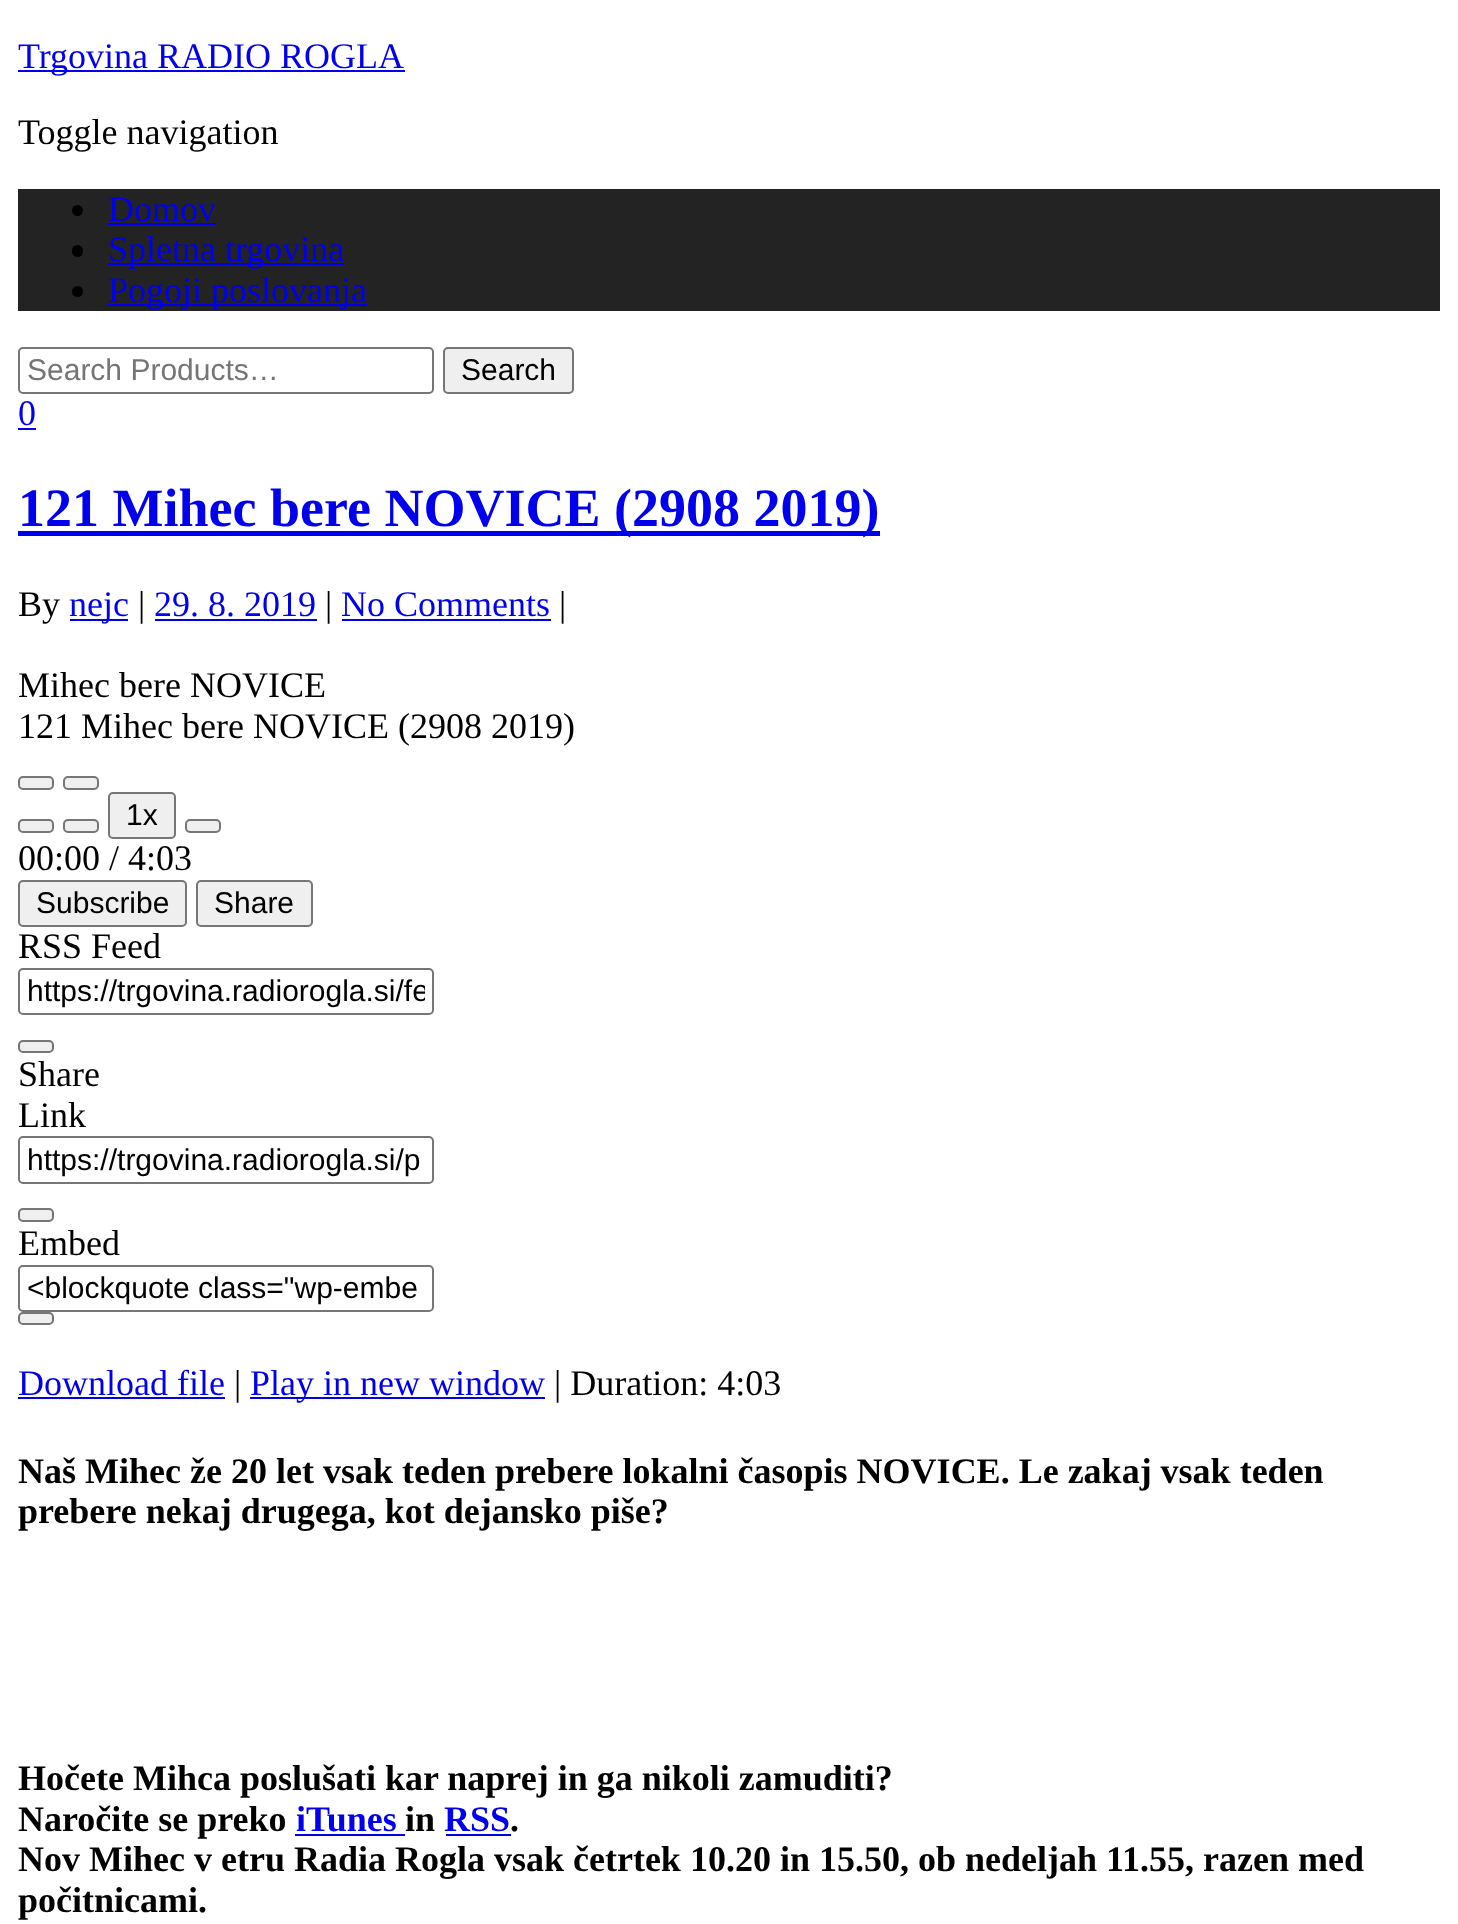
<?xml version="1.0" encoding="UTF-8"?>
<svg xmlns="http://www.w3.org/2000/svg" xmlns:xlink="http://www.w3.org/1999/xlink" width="1458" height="1924">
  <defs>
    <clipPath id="clip1"><rect x="27" y="974" width="398" height="34" /></clipPath>
  </defs>
  <rect width="100%" height="100%" fill="#ffffff" />
  <rect x="18" y="70" width="387" height="2" fill="#0000ee" />
  <rect x="18" y="189" width="1422" height="122" fill="#232323" />
  <circle cx="77.5" cy="210.5" r="5.5" fill="#000000" />
  <rect x="108" y="223" width="108" height="2" fill="#0000ee" />
  <rect x="72" y="245" width="11" height="12" rx="5.5" fill="#000000" />
  <rect x="108" y="263" width="236" height="2" fill="#0000ee" />
  <circle cx="77.5" cy="291.5" r="5.5" fill="#000000" />
  <rect x="108" y="304" width="259" height="2" fill="#0000ee" />
  <rect x="19" y="348" width="414" height="45" rx="4" fill="none" stroke="#767676" stroke-width="2" />
  <rect x="444" y="348" width="129" height="45" rx="4" fill="#efefef" stroke="#767676" stroke-width="2" />
  <rect x="18" y="428" width="18" height="2" fill="#0000ee" />
  <rect x="18" y="531" width="862" height="5" fill="#0000ee" />
  <rect x="70" y="619" width="58" height="2" fill="#0000ee" />
  <rect x="155" y="619" width="162" height="2" fill="#0000ee" />
  <rect x="342" y="619" width="209" height="2" fill="#0000ee" />
  <rect x="19" y="777" width="34" height="12" rx="4" fill="#efefef" stroke="#767676" stroke-width="2" />
  <rect x="64" y="777" width="34" height="12" rx="4" fill="#efefef" stroke="#767676" stroke-width="2" />
  <rect x="19" y="820" width="34" height="12" rx="4" fill="#efefef" stroke="#767676" stroke-width="2" />
  <rect x="64" y="820" width="34" height="12" rx="4" fill="#efefef" stroke="#767676" stroke-width="2" />
  <rect x="109" y="793" width="66" height="45" rx="4" fill="#efefef" stroke="#767676" stroke-width="2" />
  <rect x="186" y="820" width="34" height="12" rx="4" fill="#efefef" stroke="#767676" stroke-width="2" />
  <rect x="19" y="881" width="167" height="45" rx="4" fill="#efefef" stroke="#767676" stroke-width="2" />
  <rect x="197" y="881" width="115" height="45" rx="4" fill="#efefef" stroke="#767676" stroke-width="2" />
  <rect x="19" y="969" width="414" height="45" rx="4" fill="none" stroke="#767676" stroke-width="2" />
  <rect x="19" y="1041" width="34" height="11" rx="4" fill="#efefef" stroke="#767676" stroke-width="2" />
  <rect x="19" y="1137" width="414" height="46" rx="4" fill="none" stroke="#767676" stroke-width="2" />
  <rect x="19" y="1209" width="34" height="12" rx="4" fill="#efefef" stroke="#767676" stroke-width="2" />
  <rect x="19" y="1266" width="414" height="45" rx="4" fill="none" stroke="#767676" stroke-width="2" />
  <rect x="19" y="1313" width="34" height="11" rx="4" fill="#efefef" stroke="#767676" stroke-width="2" />
  <rect x="18" y="1397" width="207" height="2" fill="#0000ee" />
  <rect x="250" y="1397" width="295" height="2" fill="#0000ee" />
  <rect x="295" y="1834" width="110" height="2" fill="#0000ee" />
  <rect x="446" y="1834" width="65" height="2" fill="#0000ee" />
  <text x="18" y="68" style="font-family: Liberation Serif; font-size: 36px; fill: #0000ee">Trgovina RADIO ROGLA</text>
  <text x="18" y="144" style="font-family: Liberation Serif; font-size: 36px; fill: #000000">Toggle navigation</text>
  <text x="108" y="221" style="font-family: Liberation Serif; font-size: 36px; fill: #0000ee">Domov</text>
  <text x="108" y="261" style="font-family: Liberation Serif; font-size: 36px; fill: #0000ee">Spletna trgovina</text>
  <text x="108" y="302" style="font-family: Liberation Serif; font-size: 36px; fill: #0000ee">Pogoji poslovanja</text>
  <text x="27" y="380" style="font-family: Liberation Sans; font-size: 30px; fill: #757575">Search Products…</text>
  <text x="461" y="380" style="font-family: Liberation Sans; font-size: 30px; fill: #000000">Search</text>
  <text x="18" y="425" style="font-family: Liberation Serif; font-size: 36px; fill: #0000ee">0</text>
  <text x="18" y="526" style="font-family: Liberation Serif; font-size: 54px; font-weight: bold; fill: #0000ee">121 Mihec bere NOVICE (2908 2019)</text>
  <text x="18" y="616" style="font-family: Liberation Serif; font-size: 36px; fill: #000000">By</text>
  <text x="69" y="616" style="font-family: Liberation Serif; font-size: 36px; fill: #0000ee">nejc</text>
  <text x="138" y="616" style="font-family: Liberation Serif; font-size: 36px; fill: #000000">|</text>
  <text x="154" y="616" style="font-family: Liberation Serif; font-size: 36px; fill: #0000ee">29. 8. 2019</text>
  <text x="325" y="616" style="font-family: Liberation Serif; font-size: 36px; fill: #000000">|</text>
  <text x="341" y="616" style="font-family: Liberation Serif; font-size: 36px; fill: #0000ee">No Comments</text>
  <text x="559" y="616" style="font-family: Liberation Serif; font-size: 36px; fill: #000000">|</text>
  <text x="18" y="697" style="font-family: Liberation Serif; font-size: 36px; fill: #000000">Mihec bere NOVICE</text>
  <text x="18" y="738" style="font-family: Liberation Serif; font-size: 36px; fill: #000000">121 Mihec bere NOVICE (2908 2019)</text>
  <text x="126" y="825" style="font-family: Liberation Sans; font-size: 30px; fill: #000000">1x</text>
  <text x="18" y="870" style="font-family: Liberation Serif; font-size: 36px; fill: #000000">00:00 / 4:03</text>
  <text x="36" y="913" style="font-family: Liberation Sans; font-size: 30px; fill: #000000">Subscribe</text>
  <text x="214" y="913" style="font-family: Liberation Sans; font-size: 30px; fill: #000000">Share</text>
  <text x="18" y="958" style="font-family: Liberation Serif; font-size: 36px; fill: #000000">RSS Feed</text>
  <g clip-path="url(#clip1)">
    <text x="27" y="1001" style="font-family: Liberation Sans; font-size: 30px; fill: #000000">https://trgovina.radiorogla.si/fe</text>
  </g>
  <text x="18" y="1086" style="font-family: Liberation Serif; font-size: 36px; fill: #000000">Share</text>
  <text x="18" y="1127" style="font-family: Liberation Serif; font-size: 36px; fill: #000000">Link</text>
  <text x="27" y="1170" style="font-family: Liberation Sans; font-size: 30px; fill: #000000">https://trgovina.radiorogla.si/p</text>
  <text x="18" y="1255" style="font-family: Liberation Serif; font-size: 36px; fill: #000000">Embed</text>
  <text x="27" y="1298" style="font-family: Liberation Sans; font-size: 30px; fill: #000000">&lt;blockquote class="wp-embe</text>
  <text x="18" y="1395" style="font-family: Liberation Serif; font-size: 36px; fill: #0000ee">Download file</text>
  <text x="234" y="1395" style="font-family: Liberation Serif; font-size: 36px; fill: #000000">|</text>
  <text x="250" y="1395" style="font-family: Liberation Serif; font-size: 36px; fill: #0000ee">Play in new window</text>
  <text x="554" y="1395" style="font-family: Liberation Serif; font-size: 36px; fill: #000000">| Duration: 4:03</text>
  <text x="18" y="1483" style="font-family: Liberation Serif; font-size: 36px; font-weight: bold; fill: #000000">Naš Mihec že 20 let vsak teden prebere lokalni časopis NOVICE. Le zakaj vsak teden</text>
  <text x="18" y="1523" style="font-family: Liberation Serif; font-size: 36px; font-weight: bold; fill: #000000">prebere nekaj drugega, kot dejansko piše?</text>
  <text x="18" y="1790" style="font-family: Liberation Serif; font-size: 36px; font-weight: bold; fill: #000000">Hočete Mihca poslušati kar naprej in ga nikoli zamuditi?</text>
  <text x="18" y="1831" style="font-family: Liberation Serif; font-size: 36px; font-weight: bold; fill: #000000">Naročite se preko</text>
  <text x="296" y="1831" style="font-family: Liberation Serif; font-size: 36px; font-weight: bold; fill: #0000ee">iTunes</text>
  <text x="405" y="1831" style="font-family: Liberation Serif; font-size: 36px; font-weight: bold; fill: #000000">in</text>
  <text x="444" y="1831" style="font-family: Liberation Serif; font-size: 36px; font-weight: bold; fill: #0000ee">RSS</text>
  <text x="510" y="1831" style="font-family: Liberation Serif; font-size: 36px; font-weight: bold; fill: #000000">.</text>
  <text x="18" y="1871" style="font-family: Liberation Serif; font-size: 36px; font-weight: bold; fill: #000000">Nov Mihec v etru Radia Rogla vsak četrtek 10.20 in 15.50, ob nedeljah 11.55, razen med</text>
  <text x="18" y="1912" style="font-family: Liberation Serif; font-size: 36px; font-weight: bold; fill: #000000">počitnicami.</text>
</svg>
